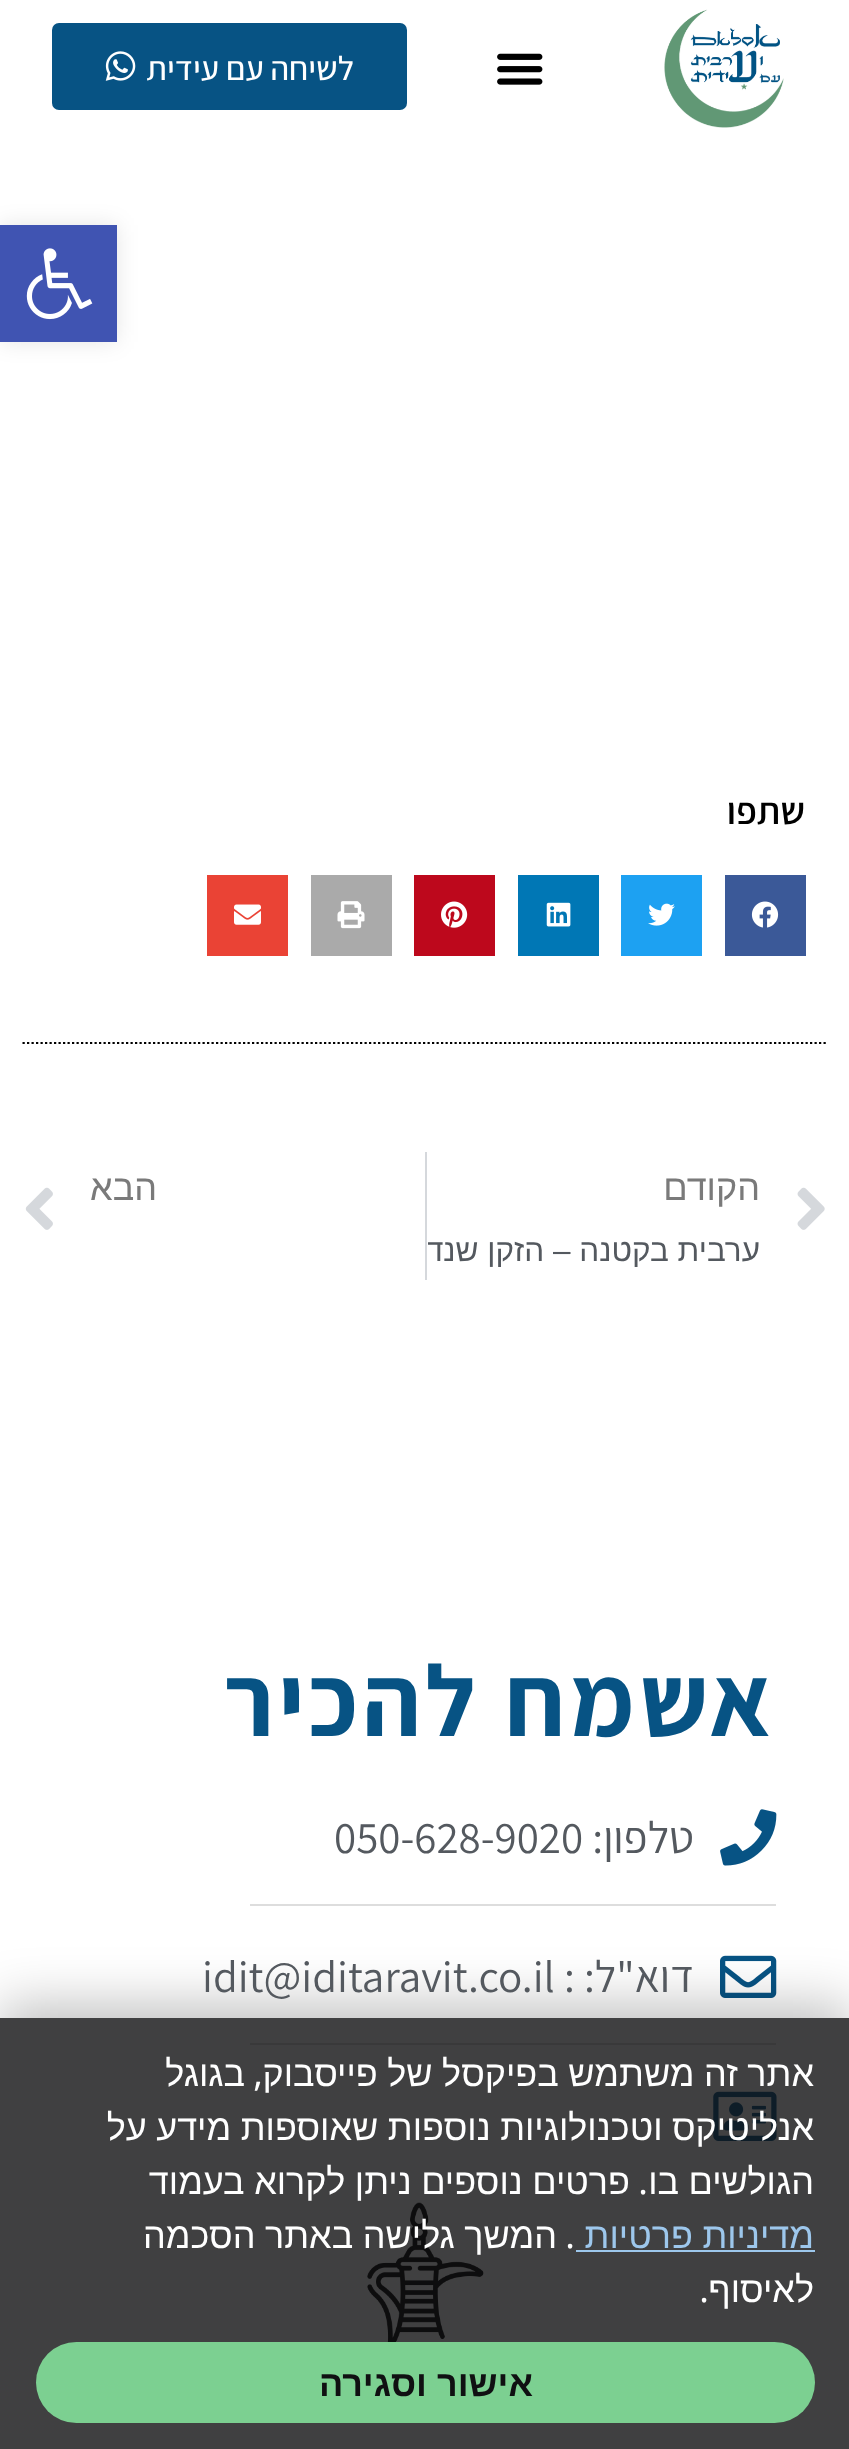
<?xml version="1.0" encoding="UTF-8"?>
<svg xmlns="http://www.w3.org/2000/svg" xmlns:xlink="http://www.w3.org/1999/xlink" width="849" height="2449">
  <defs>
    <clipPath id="clip1"><path d="M 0 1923 h 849 v 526 h -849 z m 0 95 h 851 v 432 h -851 z" clip-rule="evenodd" /></clipPath>
    <clipPath id="clip2"><rect x="428" y="1222" width="333" height="58" /></clipPath>
  </defs>
  <rect width="100%" height="100%" fill="#ffffff" />
  <image x="664" y="9" width="120" height="119" xlink:href="image1.png" />
  <image x="497" y="53" width="46" height="32" xlink:href="image2.png" />
  <rect x="52" y="23" width="355" height="87" rx="7" fill="#075384" />
  <image x="105" y="51" width="31" height="30" xlink:href="image3.png" />
  <rect x="725" y="875" width="81" height="81" fill="#3b5998" />
  <image x="751" y="901" width="28" height="27" xlink:href="image4.png" />
  <rect x="621" y="875" width="81" height="81" fill="#1da1f2" />
  <image x="648" y="903" width="27" height="23" xlink:href="image5.png" />
  <rect x="518" y="875" width="81" height="81" fill="#0077b5" />
  <image x="546" y="902" width="25" height="25" xlink:href="image6.png" />
  <rect x="414" y="875" width="81" height="81" fill="#bd081c" />
  <image x="441" y="901" width="27" height="27" xlink:href="image7.png" />
  <rect x="311" y="875" width="81" height="81" fill="#aaaaaa" />
  <image x="337" y="901" width="28" height="28" xlink:href="image8.png" />
  <rect x="207" y="875" width="81" height="81" fill="#ea4335" />
  <image x="234" y="904" width="27" height="21" xlink:href="image9.png" />
  <path d="M 22.5 1043 h 805.5" fill="none" stroke="#000000" stroke-width="2.2" stroke-dasharray="2.25 2.25" />
  <image x="797" y="1187" width="28" height="43" xlink:href="image10.png" />
  <rect x="425" y="1152" width="2" height="128" fill="#d5d8dc" />
  <image x="25" y="1187" width="28" height="43" xlink:href="image11.png" />
  <image x="720" y="1809" width="57" height="57" xlink:href="image12.png" />
  <rect x="250" y="1904" width="526" height="2" fill="#dddddd" />
  <image x="720" y="1955" width="57" height="43" xlink:href="image13.png" />
  <rect x="250" y="2043" width="526" height="2" fill="#dddddd" />
  <image x="713" y="2091" width="64" height="50" xlink:href="image14.png" />
  <image x="367" y="2202" width="117" height="140" xlink:href="image15.png" />
  <rect y="225" width="117" height="117" fill="#000000" fill-opacity="0.1" filter="blur(11px)" />
  <rect y="225" width="117" height="117" fill="#4054b2" />
  <image x="26" y="248" width="67" height="72" xlink:href="image16.png" />
  <g clip-path="url(#clip1)">
    <rect y="2005" width="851" height="432" fill="#000000" fill-opacity="0.25" filter="blur(27px)" />
  </g>
  <rect y="2018" width="849" height="431" fill="#101012" fill-opacity="0.8" />
  <rect x="576" y="2250" width="239" height="2" fill="#9dc7ec" />
  <rect x="36" y="2342" width="779" height="81" rx="40.5" fill="#7cd091" />
  <text x="354" y="80" style="font-family: Assistant; font-size: 33.75px; font-weight: 500; direction: rtl; fill: #ffffff">לשיחה עם עידית</text>
  <text x="805" y="824" style="font-family: Assistant; font-size: 38px; font-weight: 600; direction: rtl; fill: #000000">שתפו</text>
  <text x="760" y="1200" style="font-family: Liberation Sans; font-size: 36px; direction: rtl; fill: #7a7a7a">הקודם</text>
  <g clip-path="url(#clip2)">
    <text x="760" y="1261" style="font-family: Liberation Sans; font-size: 31.5px; direction: rtl; fill: #54595f">ערבית בקטנה – הזקן שנדחף</text>
  </g>
  <text x="157" y="1200" style="font-family: Liberation Sans; font-size: 36px; direction: rtl; fill: #7a7a7a">הבא</text>
  <text x="776" y="1736" style="font-family: Assistant; font-size: 101.25px; font-weight: bold; letter-spacing: 4.5px; direction: rtl; fill: #075384">אשמח להכיר</text>
  <text x="694" y="1853" style="font-family: Assistant; font-size: 45px; direction: rtl; fill: #54595f">טלפון:</text>
  <text x="334" y="1853" style="font-family: Assistant; font-size: 45px; fill: #54595f">050-628-9020</text>
  <text x="694" y="1992" style="font-family: Assistant; font-size: 45px; direction: rtl; fill: #54595f">דוא"ל: :</text>
  <text x="202" y="1992" style="font-family: Assistant; font-size: 45px; fill: #54595f">idit@iditaravit.co.il</text>
  <text x="814" y="2086" word-spacing="-0.5" style="font-family: Liberation Sans; font-size: 36px; direction: rtl; fill: #ffffff">אתר זה משתמש בפיקסל של פייסבוק</text>
  <text x="263" y="2086" style="font-family: Noto Sans; font-size: 36px; direction: rtl; fill: #ffffff">,</text>
  <text x="245" y="2086" style="font-family: Liberation Sans; font-size: 36px; direction: rtl; fill: #ffffff">בגוגל</text>
  <text x="814" y="2140" word-spacing="-0.5" style="font-family: Liberation Sans; font-size: 36px; direction: rtl; fill: #ffffff">אנליטיקס וטכנולוגיות נוספות שאוספות מידע על</text>
  <text x="814" y="2194" word-spacing="-0.5" style="font-family: Liberation Sans; font-size: 36px; direction: rtl; fill: #ffffff">הגולשים בו</text>
  <text x="648" y="2194" style="font-family: Noto Sans; font-size: 36px; direction: rtl; fill: #ffffff">.</text>
  <text x="630" y="2194" word-spacing="-0.5" style="font-family: Liberation Sans; font-size: 36px; direction: rtl; fill: #ffffff">פרטים נוספים ניתן לקרוא בעמוד</text>
  <text x="814" y="2248" word-spacing="-0.5" style="font-family: Liberation Sans; font-size: 36px; direction: rtl; fill: #9dc7ec">מדיניות פרטיות</text>
  <text x="575" y="2248" style="font-family: Noto Sans; font-size: 36px; direction: rtl; fill: #ffffff">.</text>
  <text x="557" y="2248" word-spacing="-0.5" style="font-family: Liberation Sans; font-size: 36px; direction: rtl; fill: #ffffff">המשך גלישה באתר הסכמה</text>
  <text x="814" y="2302" style="font-family: Liberation Sans; font-size: 36px; direction: rtl; fill: #ffffff">לאיסוף</text>
  <text x="709" y="2302" style="font-family: Noto Sans; font-size: 36px; direction: rtl; fill: #ffffff">.</text>
  <text x="533" y="2396" style="font-family: Liberation Sans; font-size: 36px; font-weight: bold; direction: rtl; fill: #101012">אישור וסגירה</text>
</svg>
